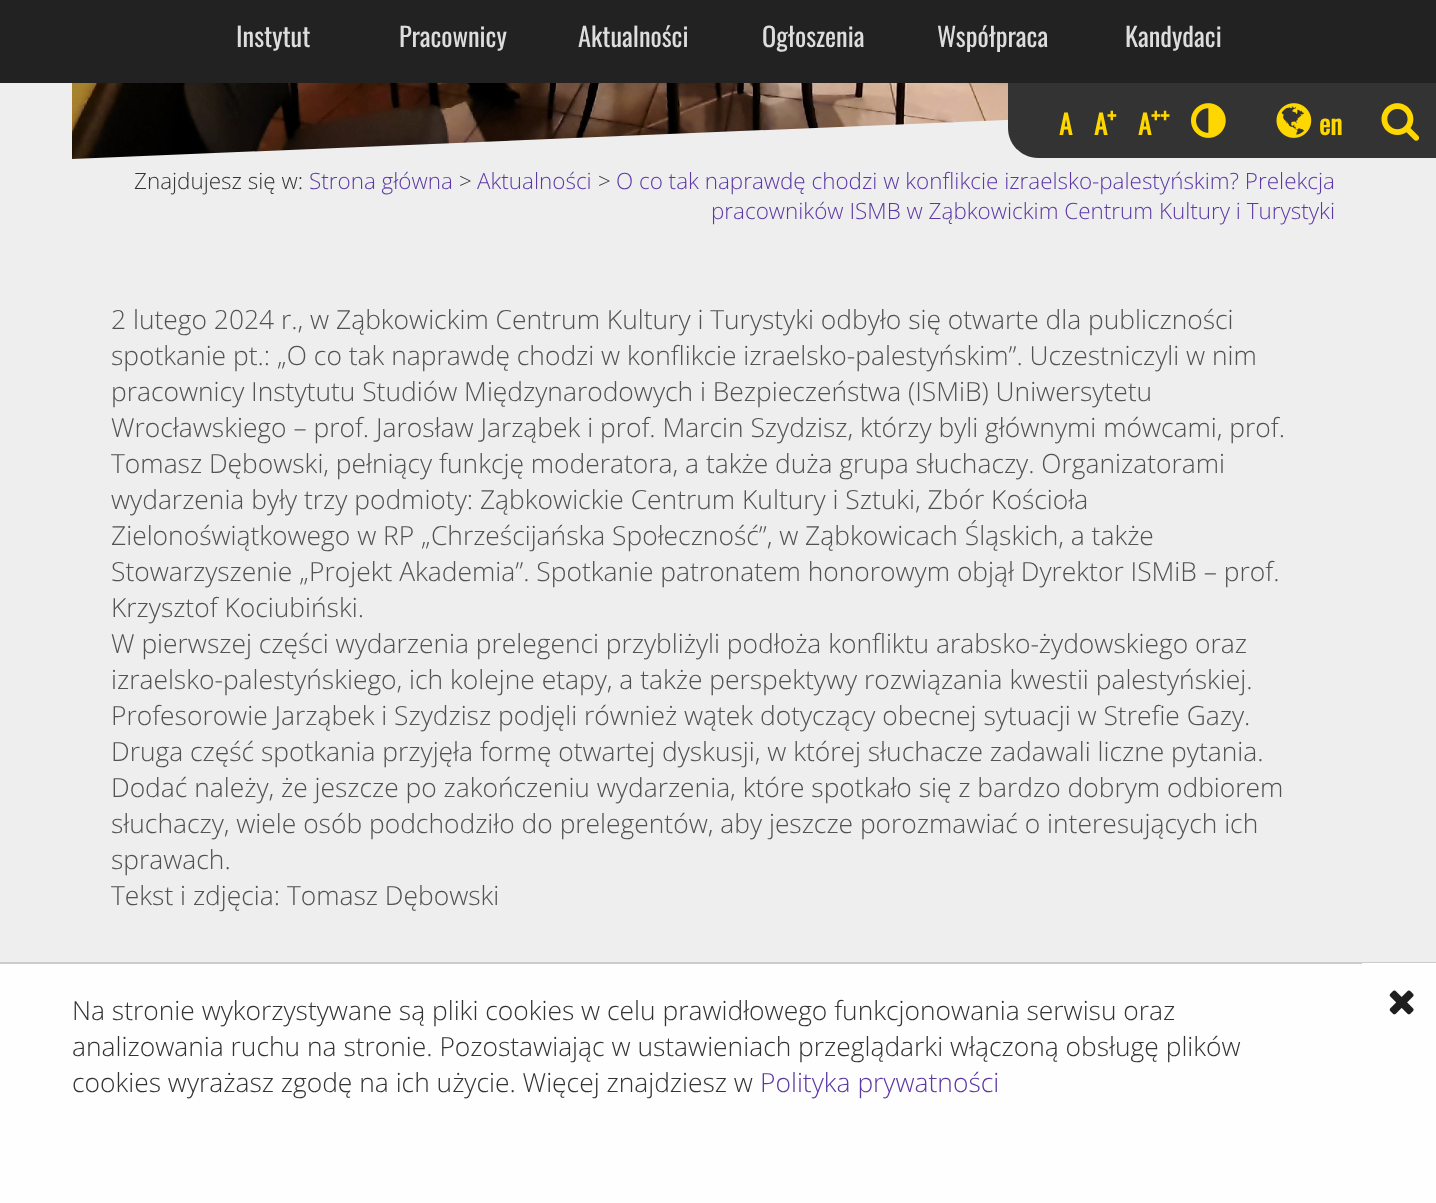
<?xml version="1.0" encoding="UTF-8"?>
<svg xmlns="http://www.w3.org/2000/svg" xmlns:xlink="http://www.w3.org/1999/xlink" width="1436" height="1203">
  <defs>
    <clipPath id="clip1"><rect x="72" width="1293" height="165" /></clipPath>
  </defs>
  <rect width="100%" height="100%" fill="#eeeeee" />
  <rect width="1436" height="83" fill="#222222" />
  <image x="72" y="83" width="936" height="76" xlink:href="image4.png" />
  <g clip-path="url(#clip1)">
    <path d="M 1365 105 v 60 h -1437 z" fill="#eeeeee" />
  </g>
  <path d="M 1008 83 h 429 v 75 h -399 c -16.5 0 -30 -13.5 -30 -30 z" fill="#333333" />
  <image x="1191" y="103" width="35" height="35" xlink:href="image1.png" />
  <image x="1276" y="103" width="36" height="35" xlink:href="image2.png" />
  <image x="1381" y="103" width="39" height="38" xlink:href="image3.png" />
  <rect y="964" width="1436" height="239" fill="#fefefe" />
  <rect y="962" width="1436" height="2" fill="#cccccc" />
  <rect x="1362" y="963" width="74" height="1" fill="#ffffff" />
  <image x="1389" y="990" width="25" height="25" xlink:href="image5.png" />
  <text x="236" y="47" style="font-family: Oswald; font-size: 26.4px; fill: #dddddd">Instytut</text>
  <text x="399" y="47" style="font-family: Oswald; font-size: 26.4px; fill: #dddddd">Pracownicy</text>
  <text x="578" y="47" style="font-family: Oswald; font-size: 26.4px; fill: #dddddd">Aktualności</text>
  <text x="762" y="47" style="font-family: Oswald; font-size: 26.4px; fill: #dddddd">Ogłoszenia</text>
  <text x="937" y="47" style="font-family: Oswald; font-size: 26.4px; fill: #dddddd">Współpraca</text>
  <text x="1125" y="47" style="font-family: Oswald; font-size: 26.4px; fill: #dddddd">Kandydaci</text>
  <text x="1059" y="135" style="font-family: Oswald; font-size: 27px; font-weight: bold; fill: #ffd700">A</text>
  <text x="1094" y="135" style="font-family: Oswald; font-size: 27px; font-weight: bold; fill: #ffd700">A</text>
  <text x="1107" y="125" style="font-family: Oswald; font-size: 22px; font-weight: bold; fill: #ffd700">+</text>
  <text x="1138" y="135" style="font-family: Oswald; font-size: 27px; font-weight: bold; fill: #ffd700">A</text>
  <text x="1151" y="125" style="font-family: Oswald; font-size: 22px; font-weight: bold; fill: #ffd700">++</text>
  <text x="1319" y="135" style="font-family: Oswald; font-size: 27px; font-weight: bold; fill: #ffd700">en</text>
  <text x="134" y="189" style="font-family: Open Sans; font-size: 22.45px; font-weight: 300; fill: #333333">Znajdujesz się w:</text>
  <text x="309" y="189" style="font-family: Open Sans; font-size: 22.45px; font-weight: 300; fill: #5d38a5">Strona główna</text>
  <text x="459" y="189" style="font-family: Open Sans; font-size: 22.45px; font-weight: 300; fill: #333333">&gt;</text>
  <text x="477" y="189" style="font-family: Open Sans; font-size: 22.45px; font-weight: 300; fill: #5d38a5">Aktualności</text>
  <text x="598" y="189" style="font-family: Open Sans; font-size: 22.45px; font-weight: 300; fill: #333333">&gt;</text>
  <text x="616" y="189" style="font-family: Open Sans; font-size: 22.45px; font-weight: 300; fill: #5d38a5">O co tak naprawdę chodzi w konflikcie izraelsko-palestyńskim? Prelekcja</text>
  <text x="711" y="219" style="font-family: Open Sans; font-size: 22.45px; font-weight: 300; fill: #5d38a5">pracowników ISMB w Ząbkowickim Centrum Kultury i Turystyki</text>
  <text x="111" y="329" style="font-family: Open Sans; font-size: 26.4px; font-weight: 300; fill: #525252">2 lutego 2024 r., w Ząbkowickim Centrum Kultury i Turystyki odbyło się otwarte dla publiczności</text>
  <text x="111" y="365" style="font-family: Open Sans; font-size: 26.4px; font-weight: 300; fill: #525252">spotkanie pt.: „O co tak naprawdę chodzi w konflikcie izraelsko-palestyńskim”. Uczestniczyli w nim</text>
  <text x="111" y="401" style="font-family: Open Sans; font-size: 26.4px; font-weight: 300; fill: #525252">pracownicy Instytutu Studiów Międzynarodowych i Bezpieczeństwa (ISMiB) Uniwersytetu</text>
  <text x="111" y="437" style="font-family: Open Sans; font-size: 26.4px; font-weight: 300; fill: #525252">Wrocławskiego – prof. Jarosław Jarząbek i prof. Marcin Szydzisz, którzy byli głównymi mówcami, prof.</text>
  <text x="111" y="473" style="font-family: Open Sans; font-size: 26.4px; font-weight: 300; fill: #525252">Tomasz Dębowski, pełniący funkcję moderatora, a także duża grupa słuchaczy. Organizatorami</text>
  <text x="111" y="509" style="font-family: Open Sans; font-size: 26.4px; font-weight: 300; fill: #525252">wydarzenia były trzy podmioty: Ząbkowickie Centrum Kultury i Sztuki, Zbór Kościoła</text>
  <text x="111" y="545" style="font-family: Open Sans; font-size: 26.4px; font-weight: 300; fill: #525252">Zielonoświątkowego w RP „Chrześcijańska Społeczność”, w Ząbkowicach Śląskich, a także</text>
  <text x="111" y="581" style="font-family: Open Sans; font-size: 26.4px; font-weight: 300; fill: #525252">Stowarzyszenie „Projekt Akademia”. Spotkanie patronatem honorowym objął Dyrektor ISMiB – prof.</text>
  <text x="111" y="617" style="font-family: Open Sans; font-size: 26.4px; font-weight: 300; fill: #525252">Krzysztof Kociubiński.</text>
  <text x="111" y="653" style="font-family: Open Sans; font-size: 26.4px; font-weight: 300; fill: #525252">W pierwszej części wydarzenia prelegenci przybliżyli podłoża konfliktu arabsko-żydowskiego oraz</text>
  <text x="111" y="689" style="font-family: Open Sans; font-size: 26.4px; font-weight: 300; fill: #525252">izraelsko-palestyńskiego, ich kolejne etapy, a także perspektywy rozwiązania kwestii palestyńskiej.</text>
  <text x="111" y="725" style="font-family: Open Sans; font-size: 26.4px; font-weight: 300; fill: #525252">Profesorowie Jarząbek i Szydzisz podjęli również wątek dotyczący obecnej sytuacji w Strefie Gazy.</text>
  <text x="111" y="761" style="font-family: Open Sans; font-size: 26.4px; font-weight: 300; fill: #525252">Druga część spotkania przyjęła formę otwartej dyskusji, w której słuchacze zadawali liczne pytania.</text>
  <text x="111" y="797" style="font-family: Open Sans; font-size: 26.4px; font-weight: 300; fill: #525252">Dodać należy, że jeszcze po zakończeniu wydarzenia, które spotkało się z bardzo dobrym odbiorem</text>
  <text x="111" y="833" style="font-family: Open Sans; font-size: 26.4px; font-weight: 300; fill: #525252">słuchaczy, wiele osób podchodziło do prelegentów, aby jeszcze porozmawiać o interesujących ich</text>
  <text x="111" y="869" style="font-family: Open Sans; font-size: 26.4px; font-weight: 300; fill: #525252">sprawach.</text>
  <text x="111" y="905" style="font-family: Open Sans; font-size: 26.4px; font-weight: 300; fill: #525252">Tekst i zdjęcia: Tomasz Dębowski</text>
  <text x="72" y="1020" style="font-family: Open Sans; font-size: 26.4px; font-weight: 300; fill: #333333">Na stronie wykorzystywane są pliki cookies w celu prawidłowego funkcjonowania serwisu oraz</text>
  <text x="72" y="1056" style="font-family: Open Sans; font-size: 26.4px; font-weight: 300; fill: #333333">analizowania ruchu na stronie. Pozostawiając w ustawieniach przeglądarki włączoną obsługę plików</text>
  <text x="72" y="1092" style="font-family: Open Sans; font-size: 26.4px; font-weight: 300; fill: #333333">cookies wyrażasz zgodę na ich użycie. Więcej znajdziesz w</text>
  <text x="760" y="1092" style="font-family: Open Sans; font-size: 26.4px; font-weight: 300; fill: #5d38a5">Polityka prywatności</text>
</svg>
